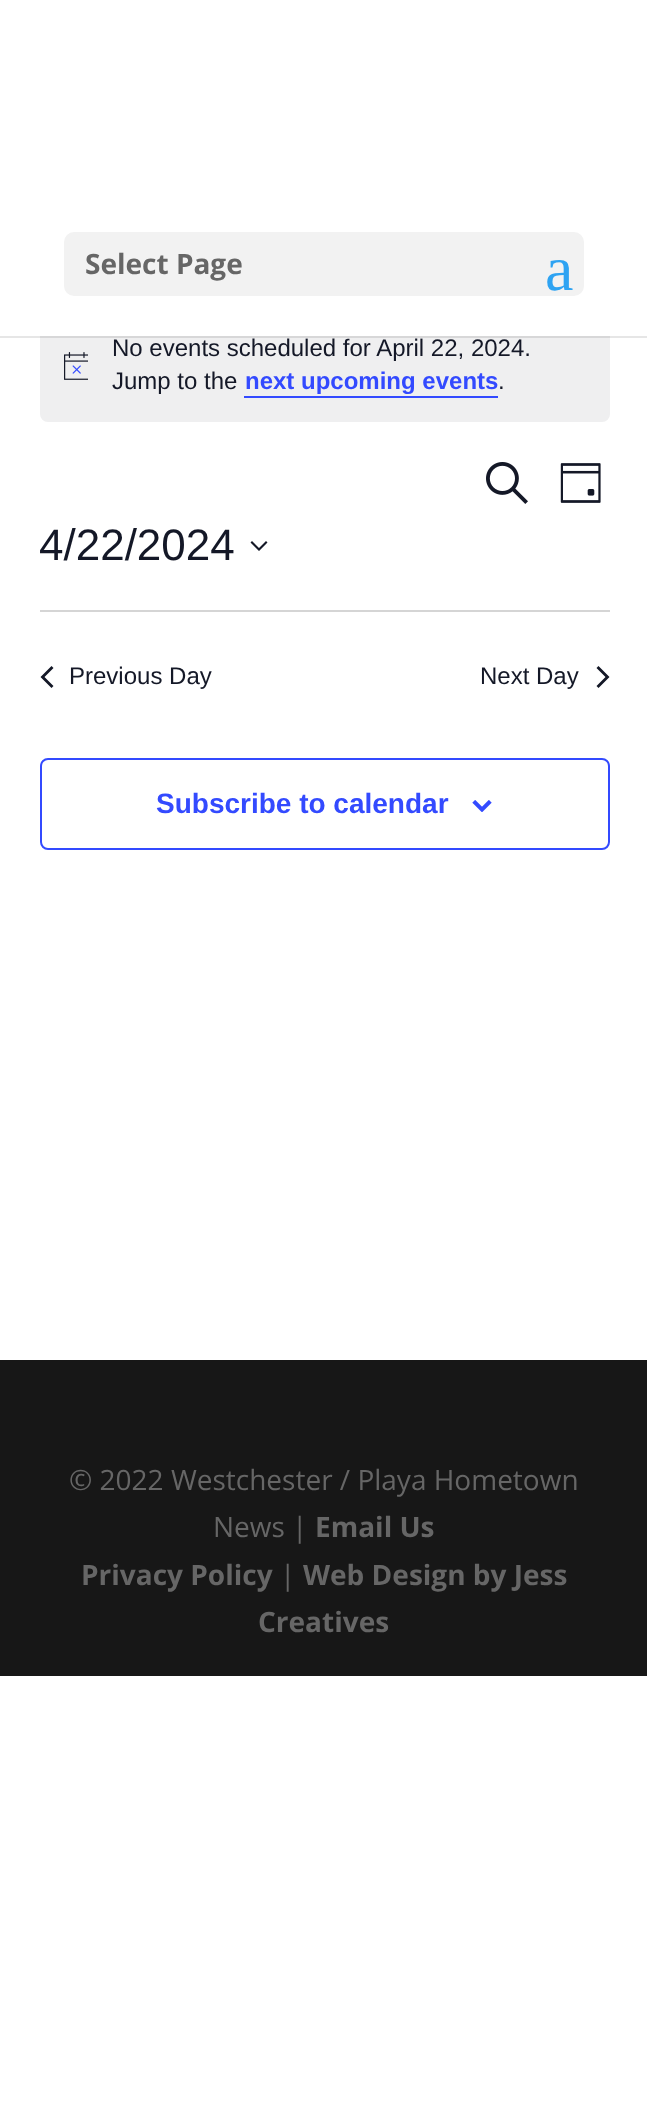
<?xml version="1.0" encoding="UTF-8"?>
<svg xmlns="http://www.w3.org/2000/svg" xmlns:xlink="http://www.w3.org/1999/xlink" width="647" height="2116">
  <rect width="100%" height="100%" fill="#ffffff" />
  <rect y="336" width="647" height="2" fill="#e6e6e6" />
  <rect x="40" y="308" width="570" height="114" rx="8" fill="#efeff0" />
  <rect x="40" y="308" width="570" height="28" fill="#ffffff" />
  <rect x="64" y="232" width="520" height="64" rx="10" fill="#f2f2f2" />
  <rect x="40" y="336" width="570" height="2" fill="#d7d7d8" />
  <image x="64" y="352" width="24" height="28" xlink:href="image1.png" />
  <rect x="244" y="396" width="254" height="2" fill="#334aff" />
  <image x="486" y="462" width="42" height="42" xlink:href="image2.png" />
  <image x="560" y="463" width="41" height="40" xlink:href="image3.png" />
  <path d="M 252 541 l 7 7 l 7 -7 l 1.5 1.5 l -8.5 8.5 l -8.5 -8.5 z" fill="#141827" fill-rule="evenodd" />
  <rect x="40" y="610" width="570" height="2" fill="#d5d5d5" />
  <path d="M 53.5 686 l -2 2 l -11 -11 l 11 -11 l 2 2 l -9 9 z" fill="#141827" />
  <path d="M 596.5 668 l 2 -2 l 11 11 l -11 11 l -2 -2 l 9 -9 z" fill="#141827" />
  <rect x="41" y="759" width="568" height="90" rx="7" fill="none" stroke="#334aff" stroke-width="2" />
  <image x="472" y="800" width="20" height="12" xlink:href="image4.png" />
  <rect y="1360" width="647" height="316" fill="#171717" />
  <text x="85" y="274" style="font-family: Open Sans; font-size: 28px; font-weight: bold; fill: #666666">Select Page</text>
  <text x="545" y="290" style="font-family: Liberation Serif; font-size: 64px; fill: #2ea3f2">a</text>
  <text x="112" y="356" style="font-family: Liberation Sans; font-size: 24px; fill: #141827">No events scheduled for April 22, 2024.</text>
  <text x="112" y="389" style="font-family: Liberation Sans; font-size: 24px; fill: #141827">Jump to the</text>
  <text x="245" y="389" style="font-family: Liberation Sans; font-size: 24px; font-weight: bold; fill: #334aff">next upcoming events</text>
  <text x="498" y="389" style="font-family: Liberation Sans; font-size: 24px; fill: #141827">.</text>
  <text x="39" y="560" style="font-family: Liberation Sans; font-size: 44px; fill: #141827">4/22/2024</text>
  <text x="69" y="684" style="font-family: Liberation Sans; font-size: 24px; fill: #141827">Previous Day</text>
  <text x="480" y="684" style="font-family: Liberation Sans; font-size: 24px; fill: #141827">Next Day</text>
  <text x="156" y="813" style="font-family: Liberation Sans; font-size: 28px; font-weight: bold; fill: #334aff">Subscribe to calendar</text>
  <text x="69" y="1490" style="font-family: Open Sans; font-size: 28px; fill: #666666">© 2022 Westchester / Playa Hometown</text>
  <text x="213" y="1537" style="font-family: Open Sans; font-size: 28px; fill: #666666">News |</text>
  <text x="315" y="1537" style="font-family: Open Sans; font-size: 28px; font-weight: bold; fill: #666666">Email Us</text>
  <text x="81" y="1585" style="font-family: Open Sans; font-size: 28px; font-weight: bold; fill: #666666">Privacy Policy</text>
  <text x="280" y="1585" style="font-family: Open Sans; font-size: 28px; fill: #666666">|</text>
  <text x="303" y="1585" style="font-family: Open Sans; font-size: 28px; font-weight: bold; fill: #666666">Web Design by Jess</text>
  <text x="258" y="1632" style="font-family: Open Sans; font-size: 28px; font-weight: bold; fill: #666666">Creatives</text>
</svg>
